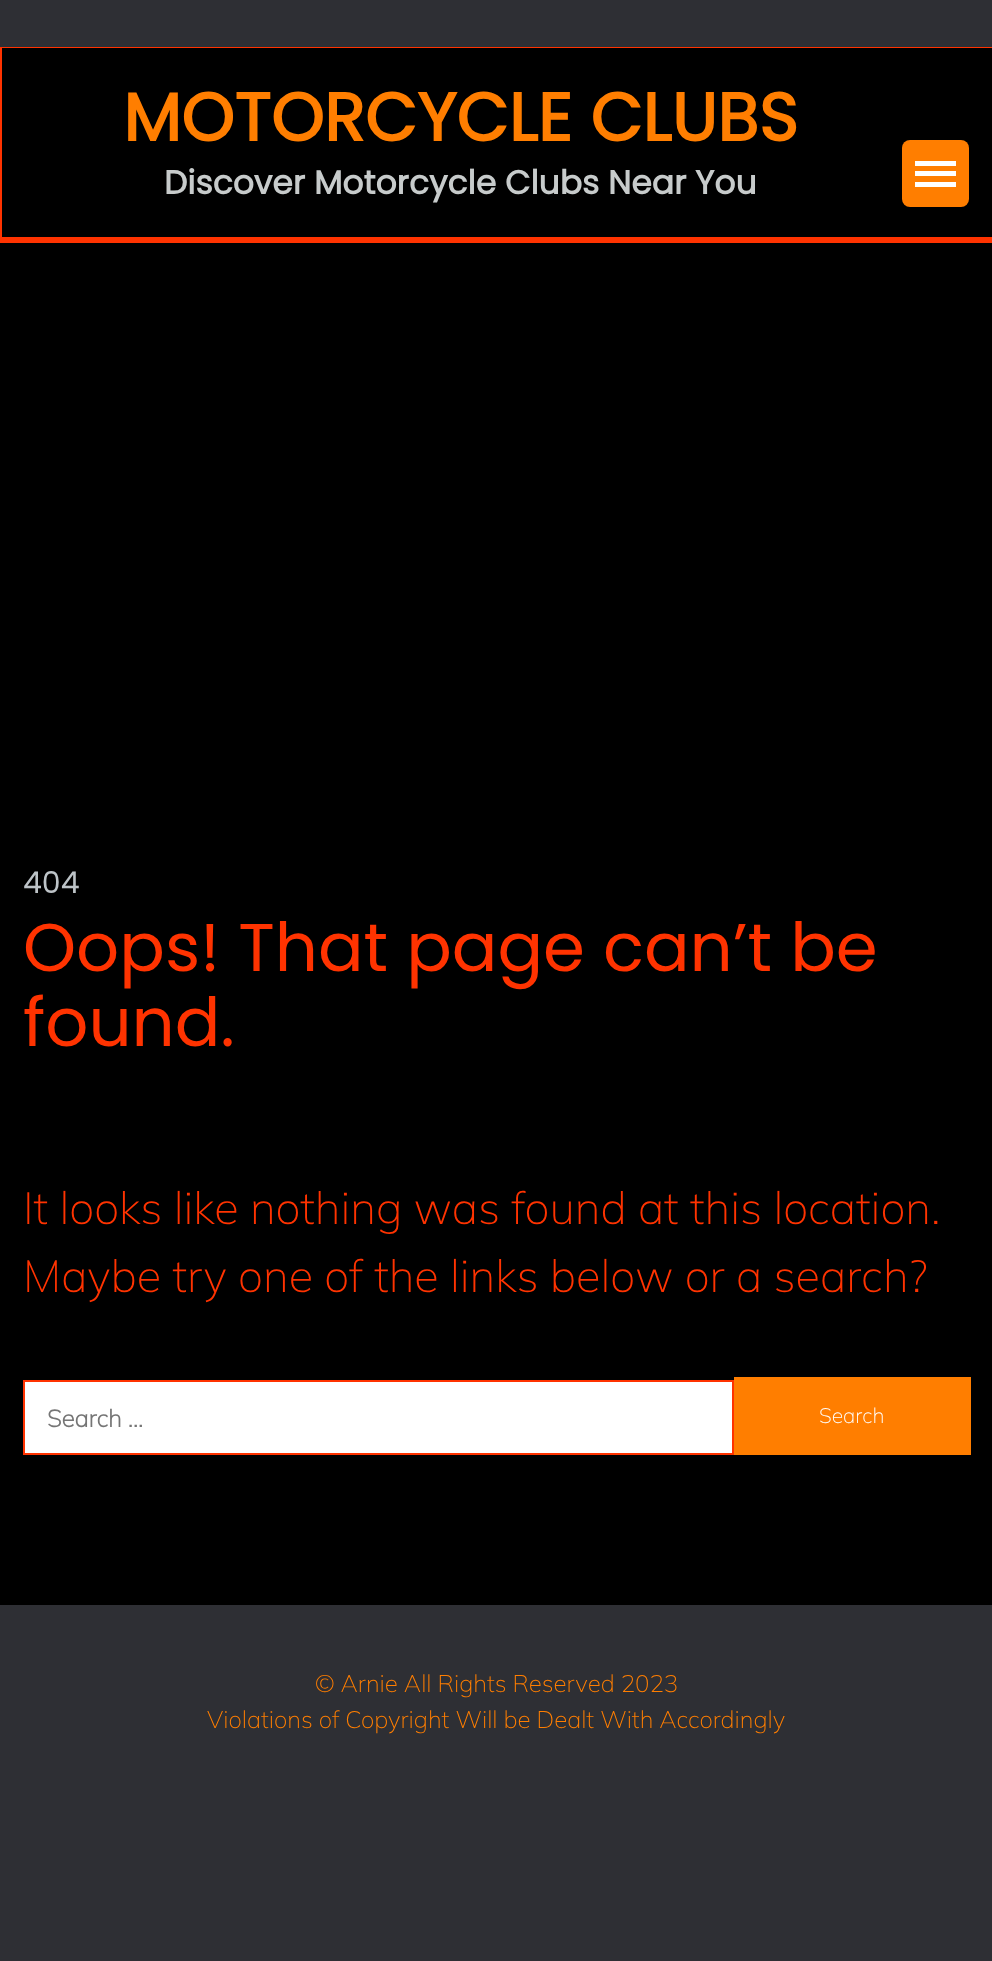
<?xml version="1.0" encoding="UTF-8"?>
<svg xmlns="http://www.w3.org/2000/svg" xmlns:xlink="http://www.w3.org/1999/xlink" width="992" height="1961">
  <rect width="100%" height="100%" fill="#2e2f34" />
  <rect y="243" width="992" height="1362" fill="#000000" />
  <rect x="1" y="48" width="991" height="194" fill="none" stroke="#ff3300" stroke-width="2" />
  <rect x="2" y="48" width="990" height="189" fill="#000000" />
  <rect x="902" y="140" width="67" height="67" rx="8" fill="#ff7e00" />
  <rect x="915" y="161" width="41" height="5" fill="#ffffff" />
  <rect x="915" y="171" width="41" height="5" fill="#ffffff" />
  <rect x="915" y="182" width="41" height="5" fill="#ffffff" />
  <rect x="2" y="237" width="990" height="4" fill="#ff3300" />
  <rect x="24" y="1381" width="709" height="73" fill="#ffffff" stroke="#ff3300" stroke-width="2" />
  <rect x="734" y="1377" width="237" height="78" fill="#ff7e00" />
  <text x="123" y="141" style="font-family: Poppins; font-size: 67.5px; font-weight: bold; fill: #ff7e00">MOTORCYCLE CLUBS</text>
  <text x="164" y="194" style="font-family: Poppins; font-size: 33px; font-weight: bold; fill: #c7cbcb">Discover Motorcycle Clubs Near You</text>
  <text x="23" y="893" style="font-family: Poppins; font-size: 30px; fill: #bdc3c7">404</text>
  <text x="23" y="971" style="font-family: Poppins; font-size: 67.5px; fill: #ff3300">Oops! That page can’t be</text>
  <text x="23" y="1046" style="font-family: Poppins; font-size: 67.5px; fill: #ff3300">found.</text>
  <text x="23" y="1224" style="font-family: Mulish; font-size: 45px; font-weight: 200; fill: #ff3300">It looks like nothing was found at this location.</text>
  <text x="23" y="1292" style="font-family: Mulish; font-size: 45px; font-weight: 200; fill: #ff3300">Maybe try one of the links below or a search?</text>
  <text x="47" y="1427" style="font-family: Mulish; font-size: 24px; font-weight: bold; fill: #757575">Search …</text>
  <text x="819" y="1423" style="font-family: Mulish; font-size: 21px; font-weight: 200; fill: #ffffff">Search</text>
  <text x="315" y="1692" style="font-family: Mulish; font-size: 24px; font-weight: 200; fill: #ff7e00">© Arnie All Rights Reserved 2023</text>
  <text x="207" y="1728" style="font-family: Mulish; font-size: 24px; font-weight: 200; fill: #ff7e00">Violations of Copyright Will be Dealt With Accordingly</text>
</svg>
